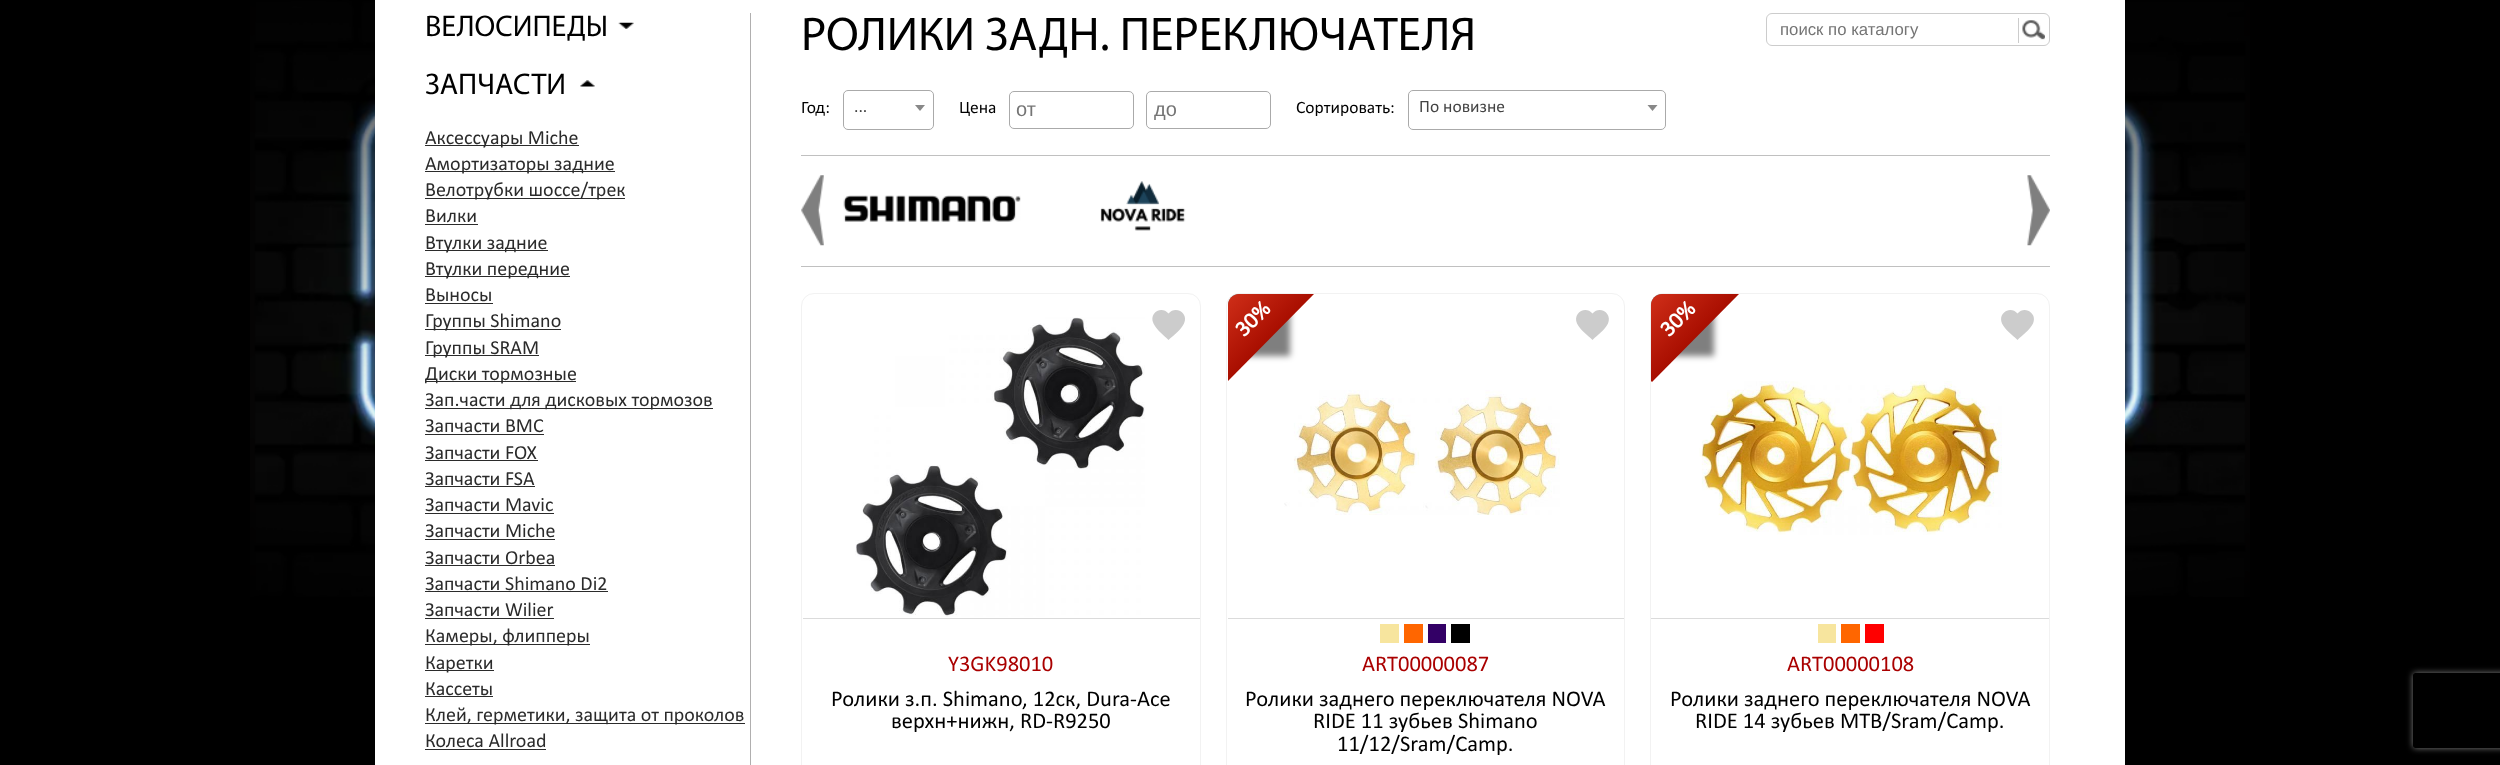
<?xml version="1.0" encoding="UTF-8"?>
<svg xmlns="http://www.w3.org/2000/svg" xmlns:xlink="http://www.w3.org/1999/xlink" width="2500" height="765">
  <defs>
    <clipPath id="clip1"><rect x="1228" y="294" width="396" height="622" rx="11" /></clipPath>
    <linearGradient id="g1" gradientUnits="userSpaceOnUse" x1="1183" y1="249" x2="1271" y2="338"><stop offset="0" stop-color="#f85032" /><stop offset="1" stop-color="#a80e00" /></linearGradient>
    <clipPath id="clip2"><rect x="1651" y="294" width="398" height="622" rx="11" /></clipPath>
    <linearGradient id="g2" gradientUnits="userSpaceOnUse" x1="1607" y1="249" x2="1696" y2="338"><stop offset="0" stop-color="#f85032" /><stop offset="1" stop-color="#a80e00" /></linearGradient>
    <clipPath id="clip3"><path d="M 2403 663 h 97 v 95 h -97 z m 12.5 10 h 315 c 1.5 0 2.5 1 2.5 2.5 v 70 c 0 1.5 -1 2.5 -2.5 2.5 h -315 c -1.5 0 -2.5 -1 -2.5 -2.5 v -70 c 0 -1.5 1 -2.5 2.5 -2.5 z" clip-rule="evenodd" /></clipPath>
  </defs>
  <rect width="100%" height="100%" fill="#000000" />
  <image x="250" y="0" width="2000" height="597" xlink:href="image1.png" />
  <rect x="375" width="1750" height="765" fill="#ffffff" />
  <image x="618" y="22" width="16" height="7" xlink:href="image2.png" />
  <image x="580" y="80" width="15" height="7" xlink:href="image3.png" />
  <rect x="425" y="145" width="154" height="1" fill="#2b2b2b" />
  <rect x="425" y="171" width="190" height="1" fill="#2b2b2b" />
  <rect x="425" y="198" width="200" height="1" fill="#2b2b2b" />
  <rect x="425" y="224" width="53" height="1" fill="#2b2b2b" />
  <rect x="425" y="250" width="123" height="1" fill="#2b2b2b" />
  <rect x="425" y="276" width="145" height="1" fill="#2b2b2b" />
  <rect x="425" y="303" width="68" height="1" fill="#2b2b2b" />
  <rect x="425" y="329" width="136" height="1" fill="#2b2b2b" />
  <rect x="425" y="355" width="114" height="1" fill="#2b2b2b" />
  <rect x="425" y="381" width="151" height="1" fill="#2b2b2b" />
  <rect x="425" y="408" width="288" height="1" fill="#2b2b2b" />
  <rect x="425" y="434" width="119" height="1" fill="#2b2b2b" />
  <rect x="425" y="460" width="113" height="1" fill="#2b2b2b" />
  <rect x="425" y="486" width="110" height="1" fill="#2b2b2b" />
  <rect x="425" y="513" width="129" height="1" fill="#2b2b2b" />
  <rect x="425" y="539" width="130" height="1" fill="#2b2b2b" />
  <rect x="425" y="565" width="130" height="1" fill="#2b2b2b" />
  <rect x="425" y="591" width="183" height="1" fill="#2b2b2b" />
  <rect x="425" y="618" width="129" height="1" fill="#2b2b2b" />
  <rect x="425" y="644" width="165" height="1" fill="#2b2b2b" />
  <rect x="425" y="670" width="69" height="1" fill="#2b2b2b" />
  <rect x="425" y="696" width="68" height="1" fill="#2b2b2b" />
  <rect x="425" y="723" width="320" height="1" fill="#2b2b2b" />
  <rect x="425" y="749" width="121" height="1" fill="#2b2b2b" />
  <rect x="750" y="13" width="1" height="752" fill="#b0afaf" />
  <rect x="1766.5" y="13.5" width="283" height="32" rx="5.5" fill="none" stroke="#cccccc" />
  <image x="2022" y="20" width="23" height="20" xlink:href="image4.png" />
  <rect x="2018" y="18" width="1" height="25" fill="#cccccc" />
  <rect x="843.5" y="90.5" width="90" height="39" rx="4.5" fill="none" stroke="#aaaaaa" />
  <path d="M 915 105 h 10 l -5 6 z" fill="#888888" />
  <rect x="1009.5" y="91.5" width="124" height="37" rx="4.5" fill="none" stroke="#aaaaaa" />
  <rect x="1146.5" y="91.5" width="124" height="37" rx="4.5" fill="none" stroke="#aaaaaa" />
  <rect x="1408.5" y="90.5" width="257" height="39" rx="4.5" fill="none" stroke="#aaaaaa" />
  <path d="M 1647.5 105 h 10 l -5 6 z" fill="#888888" />
  <rect x="801" y="155" width="1249" height="1" fill="#c0c0c0" />
  <rect x="801" y="266" width="1249" height="1" fill="#c0c0c0" />
  <image x="801" y="175" width="23" height="71" xlink:href="image5.png" />
  <image x="843" y="195" width="178" height="27" xlink:href="image6.png" />
  <image x="1100" y="181" width="86" height="50" xlink:href="image7.png" />
  <image x="2027" y="175" width="23" height="71" xlink:href="image8.png" />
  <rect x="801.5" y="293.5" width="399" height="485" rx="12.5" fill="none" stroke="#f2f2f2" />
  <path d="M 1168.5 340 c -5 -5 -12 -10 -15 -16.5 c -5 -10.5 8 -18.5 15 -10 c 7 -8.5 20.5 -0.5 15.5 10 c -3 6.5 -10 11.5 -15.5 16.5 z" fill="#cccccc" />
  <rect x="803" y="618" width="397" height="1" fill="#dbdbdb" />
  <image x="855" y="317" width="290" height="300" xlink:href="image9.png" />
  <rect x="1226.5" y="293.5" width="398" height="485" rx="12.5" fill="none" stroke="#f2f2f2" />
  <g clip-path="url(#clip1)">
    <rect x="1165" y="231" width="125" height="125" fill="#000000" fill-opacity="0.5" filter="blur(3px)" />
  </g>
  <path d="M 1239 294 h 75 l -86 87 v -76 c 0 -6 5 -11 11 -11 z" fill="url(#g1)" />
  <path d="M 1592.5 340 c -5 -5 -12.5 -10 -15.5 -16.5 c -4.5 -10.5 8.5 -18.5 15.5 -10 c 7 -8.5 20 -0.5 15.5 10 c -3 6.5 -10.5 11.5 -15.5 16.5 z" fill="#cccccc" />
  <rect x="1228" y="618" width="396" height="1" fill="#dbdbdb" />
  <image x="1284" y="390" width="276" height="125" xlink:href="image10.png" />
  <rect x="1380" y="624" width="19" height="19" fill="#f7e59e" />
  <rect x="1404" y="624" width="19" height="19" fill="#ff6600" />
  <rect x="1428" y="624" width="18" height="19" fill="#330066" />
  <rect x="1451" y="624" width="19" height="19" fill="#000000" />
  <rect x="1650.5" y="293.5" width="399" height="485" rx="12.5" fill="none" stroke="#f2f2f2" />
  <g clip-path="url(#clip2)">
    <rect x="1589" y="231" width="125" height="125" fill="#000000" fill-opacity="0.5" filter="blur(3px)" />
  </g>
  <image x="1699" y="381" width="303" height="154" xlink:href="image11.png" />
  <path d="M 1662 294 h 77 l -87 88 l -1 -1 v -76 c 0 -6 5 -11 11 -11 z" fill="url(#g2)" />
  <path d="M 2017.5 340 c -5 -5 -12.5 -10 -15.5 -16.5 c -4.5 -10.5 8.5 -18.5 15.5 -10 c 7 -8.5 20 -0.5 15.5 10 c -3 6.5 -10.5 11.5 -15.5 16.5 z" fill="#cccccc" />
  <rect x="1651" y="618" width="398" height="1" fill="#dbdbdb" />
  <rect x="1818" y="624" width="18" height="19" fill="#f7e59e" />
  <rect x="1841" y="624" width="19" height="19" fill="#ff6600" />
  <rect x="1865" y="624" width="19" height="19" fill="#ff0000" />
  <g clip-path="url(#clip3)">
    <rect x="2413" y="673" width="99" height="75" rx="2.5" fill="#808080" filter="blur(3px)" />
  </g>
  <text x="425" y="36" style="font-family: Myriad; font-size: 30px; fill: #000000">ВЕЛОСИПЕДЫ</text>
  <text x="425" y="94" style="font-family: Myriad; font-size: 30px; fill: #000000">ЗАПЧАСТИ</text>
  <text x="425" y="144" style="font-family: Calibri; font-size: 20px; fill: #2b2b2b">Аксессуары Miche</text>
  <text x="425" y="170" style="font-family: Calibri; font-size: 20px; fill: #2b2b2b">Амортизаторы задние</text>
  <text x="425" y="196" style="font-family: Calibri; font-size: 20px; fill: #2b2b2b">Велотрубки шоссе/трек</text>
  <text x="425" y="222" style="font-family: Calibri; font-size: 20px; fill: #2b2b2b">Вилки</text>
  <text x="425" y="249" style="font-family: Calibri; font-size: 20px; fill: #2b2b2b">Втулки задние</text>
  <text x="425" y="275" style="font-family: Calibri; font-size: 20px; fill: #2b2b2b">Втулки передние</text>
  <text x="425" y="301" style="font-family: Calibri; font-size: 20px; fill: #2b2b2b">Выносы</text>
  <text x="425" y="327" style="font-family: Calibri; font-size: 20px; fill: #2b2b2b">Группы Shimano</text>
  <text x="425" y="354" style="font-family: Calibri; font-size: 20px; fill: #2b2b2b">Группы SRAM</text>
  <text x="425" y="380" style="font-family: Calibri; font-size: 20px; fill: #2b2b2b">Диски тормозные</text>
  <text x="425" y="406" style="font-family: Calibri; font-size: 20px; fill: #2b2b2b">Зап.части для дисковых тормозов</text>
  <text x="425" y="432" style="font-family: Calibri; font-size: 20px; fill: #2b2b2b">Запчасти BMC</text>
  <text x="425" y="459" style="font-family: Calibri; font-size: 20px; fill: #2b2b2b">Запчасти FOX</text>
  <text x="425" y="485" style="font-family: Calibri; font-size: 20px; fill: #2b2b2b">Запчасти FSA</text>
  <text x="425" y="511" style="font-family: Calibri; font-size: 20px; fill: #2b2b2b">Запчасти Mavic</text>
  <text x="425" y="537" style="font-family: Calibri; font-size: 20px; fill: #2b2b2b">Запчасти Miche</text>
  <text x="425" y="564" style="font-family: Calibri; font-size: 20px; fill: #2b2b2b">Запчасти Orbea</text>
  <text x="425" y="590" style="font-family: Calibri; font-size: 20px; fill: #2b2b2b">Запчасти Shimano Di2</text>
  <text x="425" y="616" style="font-family: Calibri; font-size: 20px; fill: #2b2b2b">Запчасти Wilier</text>
  <text x="425" y="642" style="font-family: Calibri; font-size: 20px; fill: #2b2b2b">Камеры, флипперы</text>
  <text x="425" y="669" style="font-family: Calibri; font-size: 20px; fill: #2b2b2b">Каретки</text>
  <text x="425" y="695" style="font-family: Calibri; font-size: 20px; fill: #2b2b2b">Кассеты</text>
  <text x="425" y="721" style="font-family: Calibri; font-size: 20px; fill: #2b2b2b">Клей, герметики, защита от проколов</text>
  <text x="425" y="747" style="font-family: Calibri; font-size: 20px; fill: #2b2b2b">Колеса Allroad</text>
  <text x="801" y="50" style="font-family: Myriad; font-size: 47.5px; fill: #000000">РОЛИКИ ЗАДН. ПЕРЕКЛЮЧАТЕЛЯ</text>
  <text x="1780" y="35" style="font-family: Liberation Sans; font-size: 16.75px; fill: #757575">поиск по каталогу</text>
  <text x="801" y="113" style="font-family: Calibri; font-size: 17.5px; fill: #000000">Год:</text>
  <text x="854" y="112" style="font-family: Calibri; font-size: 17.5px; fill: #444444">...</text>
  <text x="959" y="113" style="font-family: Calibri; font-size: 17.5px; fill: #000000">Цена</text>
  <text x="1016" y="116" style="font-family: Liberation Sans; font-size: 20px; fill: #757575">от</text>
  <text x="1154" y="116" style="font-family: Liberation Sans; font-size: 20px; fill: #757575">до</text>
  <text x="1296" y="113" style="font-family: Calibri; font-size: 17.5px; fill: #000000">Сортировать:</text>
  <text x="1419" y="112" style="font-family: Calibri; font-size: 17.5px; fill: #444444">По новизне</text>
  <text x="948" y="671" style="font-family: Calibri; font-size: 22.5px; fill: #aa0000">Y3GK98010</text>
  <text x="831" y="706" style="font-family: Calibri; font-size: 22.5px; fill: #000000">Ролики з.п. Shimano, 12ск, Dura-Ace</text>
  <text x="891" y="728" style="font-family: Calibri; font-size: 22.5px; fill: #000000">верхн+нижн, RD-R9250</text>
  <text x="1244" y="338" transform="rotate(-45 1244 338)" style="font-family: Calibri; font-size: 22.5px; font-weight: bold; fill: #ffffff">30%</text>
  <text x="1362" y="671" style="font-family: Calibri; font-size: 22.5px; fill: #aa0000">ART00000087</text>
  <text x="1245" y="706" style="font-family: Calibri; font-size: 22.5px; fill: #000000">Ролики заднего переключателя NOVA</text>
  <text x="1313" y="728" style="font-family: Calibri; font-size: 22.5px; fill: #000000">RIDE 11 зубьев Shimano</text>
  <text x="1337" y="751" style="font-family: Calibri; font-size: 22.5px; fill: #000000">11/12/Sram/Camp.</text>
  <text x="1669" y="338" transform="rotate(-45 1669 338)" style="font-family: Calibri; font-size: 22.5px; font-weight: bold; fill: #ffffff">30%</text>
  <text x="1787" y="671" style="font-family: Calibri; font-size: 22.5px; fill: #aa0000">ART00000108</text>
  <text x="1670" y="706" style="font-family: Calibri; font-size: 22.5px; fill: #000000">Ролики заднего переключателя NOVA</text>
  <text x="1695" y="728" style="font-family: Calibri; font-size: 22.5px; fill: #000000">RIDE 14 зубьев MTB/Sram/Camp.</text>
</svg>
